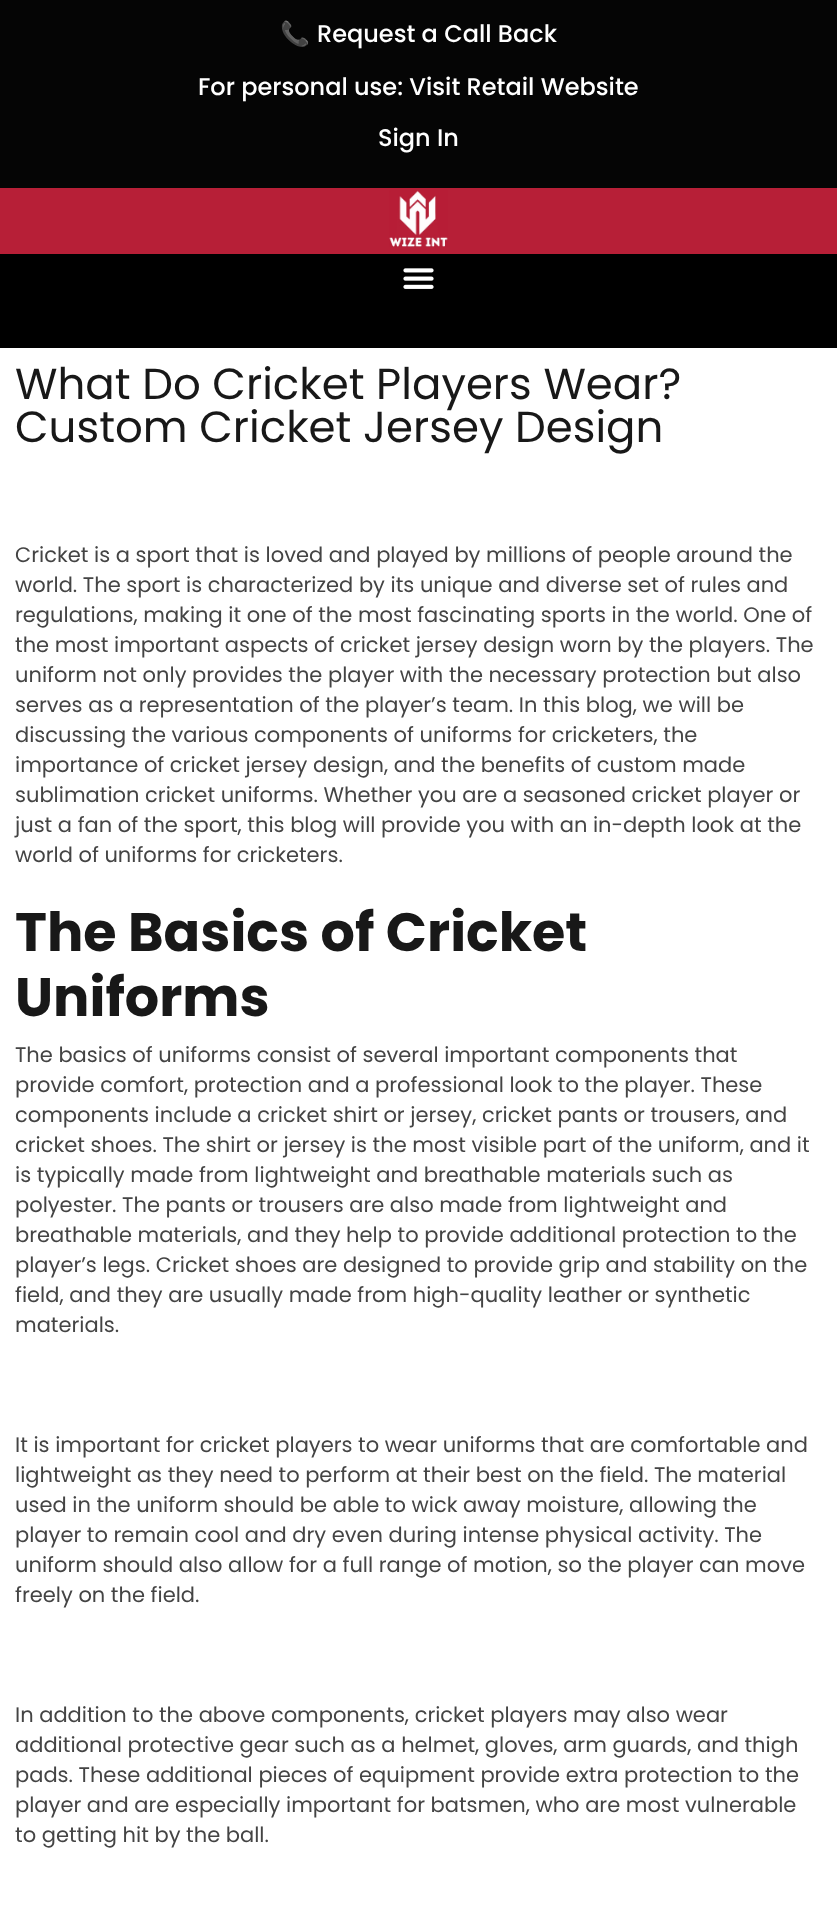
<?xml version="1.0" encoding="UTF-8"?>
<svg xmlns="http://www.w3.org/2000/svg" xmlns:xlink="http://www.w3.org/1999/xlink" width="837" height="1911">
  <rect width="100%" height="100%" fill="#ffffff" />
  <rect width="837" height="188" fill="#050505" />
  <rect y="188" width="837" height="66" fill="#b71f37" />
  <image x="389" y="190" width="59" height="57" xlink:href="image1.png" />
  <rect y="254" width="837" height="94" fill="#000000" />
  <image x="403" y="268" width="31" height="21" xlink:href="image2.png" />
  <text x="280" y="42" style="font-family: Noto Color Emoji; font-size: 24px; fill: #ffffff">📞</text>
  <text x="317" y="42" style="font-family: Poppins; font-size: 24px; font-weight: 500; fill: #ffffff">Request a Call Back</text>
  <text x="198" y="95" style="font-family: Poppins; font-size: 24px; font-weight: 500; fill: #ffffff">For personal use: Visit Retail Website</text>
  <text x="378" y="146" style="font-family: Poppins; font-size: 24px; font-weight: 500; fill: #ffffff">Sign In</text>
  <text x="15" y="399" style="font-family: Poppins; font-size: 43.5px; fill: #181818">What Do Cricket Players Wear?</text>
  <text x="15" y="442" style="font-family: Poppins; font-size: 43.5px; fill: #181818">Custom Cricket Jersey Design</text>
  <text x="15" y="562" style="font-family: Poppins; font-size: 21px; fill: #444444">Cricket is a sport that is loved and played by millions of people around the</text>
  <text x="15" y="592" style="font-family: Poppins; font-size: 21px; fill: #444444">world. The sport is characterized by its unique and diverse set of rules and</text>
  <text x="15" y="622" style="font-family: Poppins; font-size: 21px; fill: #444444">regulations, making it one of the most fascinating sports in the world. One of</text>
  <text x="15" y="652" style="font-family: Poppins; font-size: 21px; fill: #444444">the most important aspects of cricket jersey design worn by the players. The</text>
  <text x="15" y="682" style="font-family: Poppins; font-size: 21px; fill: #444444">uniform not only provides the player with the necessary protection but also</text>
  <text x="15" y="712" style="font-family: Poppins; font-size: 21px; fill: #444444">serves as a representation of the player’s team. In this blog, we will be</text>
  <text x="15" y="742" style="font-family: Poppins; font-size: 21px; fill: #444444">discussing the various components of uniforms for cricketers, the</text>
  <text x="15" y="772" style="font-family: Poppins; font-size: 21px; fill: #444444">importance of cricket jersey design, and the benefits of custom made</text>
  <text x="15" y="802" style="font-family: Poppins; font-size: 21px; fill: #444444">sublimation cricket uniforms. Whether you are a seasoned cricket player or</text>
  <text x="15" y="832" style="font-family: Poppins; font-size: 21px; fill: #444444">just a fan of the sport, this blog will provide you with an in-depth look at the</text>
  <text x="15" y="862" style="font-family: Poppins; font-size: 21px; fill: #444444">world of uniforms for cricketers.</text>
  <text x="15" y="951" style="font-family: Poppins; font-size: 54px; font-weight: bold; fill: #181818">The Basics of Cricket</text>
  <text x="15" y="1016" style="font-family: Poppins; font-size: 54px; font-weight: bold; fill: #181818">Uniforms</text>
  <text x="15" y="1062" style="font-family: Poppins; font-size: 21px; fill: #444444">The basics of uniforms consist of several important components that</text>
  <text x="15" y="1092" style="font-family: Poppins; font-size: 21px; fill: #444444">provide comfort, protection and a professional look to the player. These</text>
  <text x="15" y="1122" style="font-family: Poppins; font-size: 21px; fill: #444444">components include a cricket shirt or jersey, cricket pants or trousers, and</text>
  <text x="15" y="1152" style="font-family: Poppins; font-size: 21px; fill: #444444">cricket shoes. The shirt or jersey is the most visible part of the uniform, and it</text>
  <text x="15" y="1182" style="font-family: Poppins; font-size: 21px; fill: #444444">is typically made from lightweight and breathable materials such as</text>
  <text x="15" y="1212" style="font-family: Poppins; font-size: 21px; fill: #444444">polyester. The pants or trousers are also made from lightweight and</text>
  <text x="15" y="1242" style="font-family: Poppins; font-size: 21px; fill: #444444">breathable materials, and they help to provide additional protection to the</text>
  <text x="15" y="1272" style="font-family: Poppins; font-size: 21px; fill: #444444">player’s legs. Cricket shoes are designed to provide grip and stability on the</text>
  <text x="15" y="1302" style="font-family: Poppins; font-size: 21px; fill: #444444">field, and they are usually made from high-quality leather or synthetic</text>
  <text x="15" y="1332" style="font-family: Poppins; font-size: 21px; fill: #444444">materials.</text>
  <text x="15" y="1452" style="font-family: Poppins; font-size: 21px; fill: #444444">It is important for cricket players to wear uniforms that are comfortable and</text>
  <text x="15" y="1482" style="font-family: Poppins; font-size: 21px; fill: #444444">lightweight as they need to perform at their best on the field. The material</text>
  <text x="15" y="1512" style="font-family: Poppins; font-size: 21px; fill: #444444">used in the uniform should be able to wick away moisture, allowing the</text>
  <text x="15" y="1542" style="font-family: Poppins; font-size: 21px; fill: #444444">player to remain cool and dry even during intense physical activity. The</text>
  <text x="15" y="1572" style="font-family: Poppins; font-size: 21px; fill: #444444">uniform should also allow for a full range of motion, so the player can move</text>
  <text x="15" y="1602" style="font-family: Poppins; font-size: 21px; fill: #444444">freely on the field.</text>
  <text x="15" y="1722" style="font-family: Poppins; font-size: 21px; fill: #444444">In addition to the above components, cricket players may also wear</text>
  <text x="15" y="1752" style="font-family: Poppins; font-size: 21px; fill: #444444">additional protective gear such as a helmet, gloves, arm guards, and thigh</text>
  <text x="15" y="1782" style="font-family: Poppins; font-size: 21px; fill: #444444">pads. These additional pieces of equipment provide extra protection to the</text>
  <text x="15" y="1812" style="font-family: Poppins; font-size: 21px; fill: #444444">player and are especially important for batsmen, who are most vulnerable</text>
  <text x="15" y="1842" style="font-family: Poppins; font-size: 21px; fill: #444444">to getting hit by the ball.</text>
</svg>
